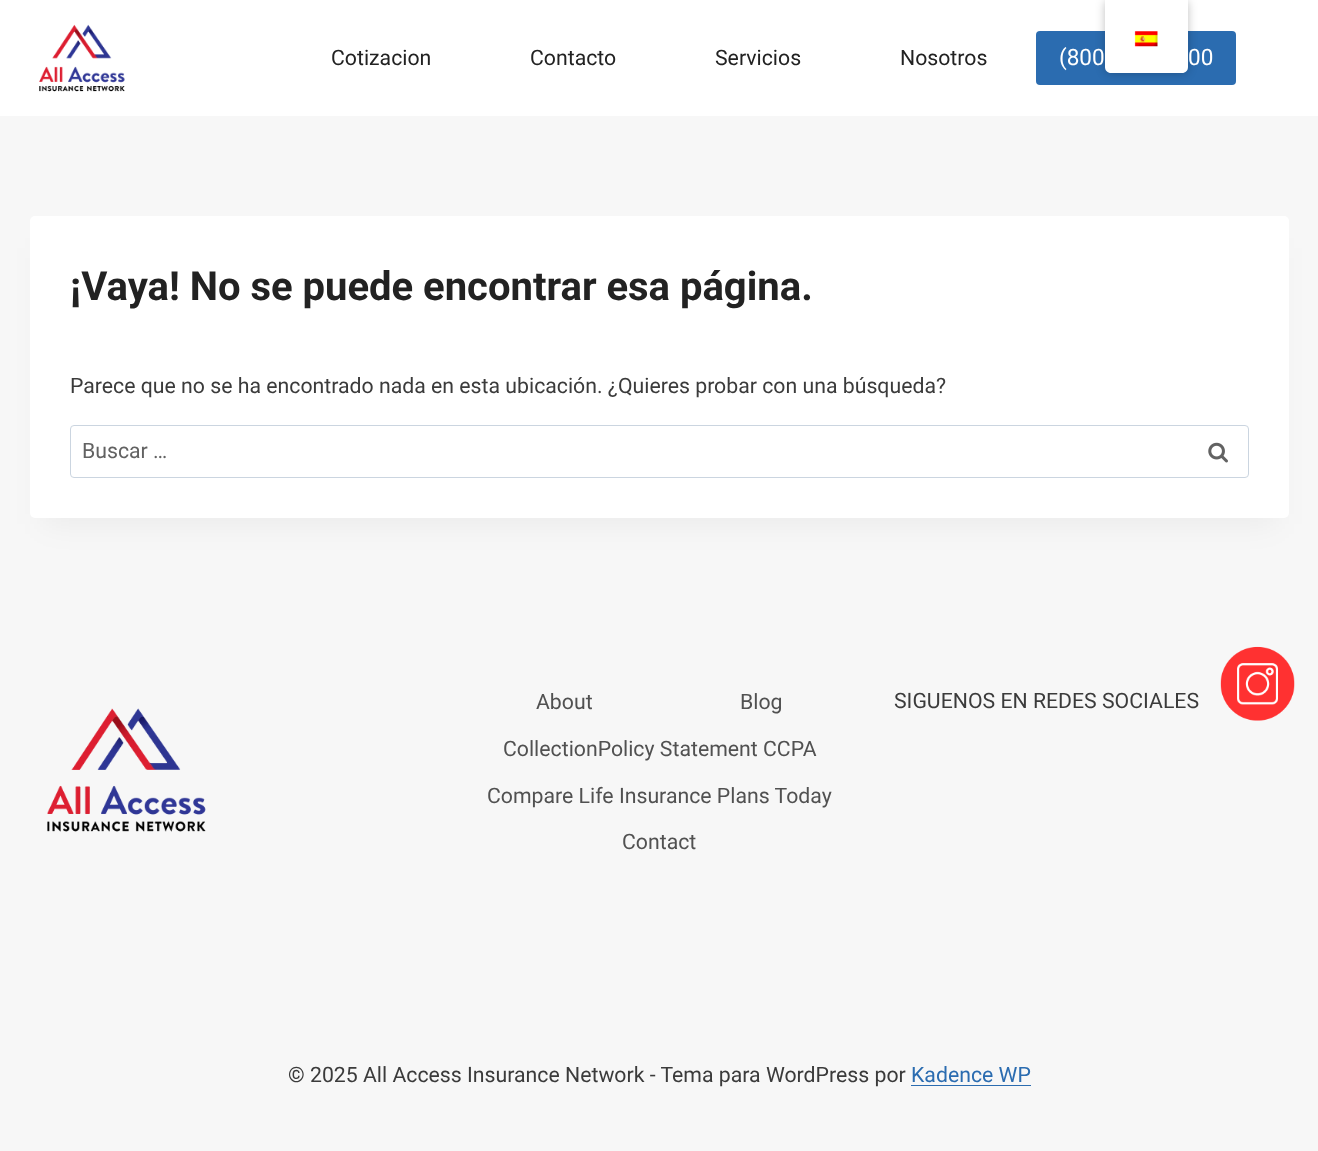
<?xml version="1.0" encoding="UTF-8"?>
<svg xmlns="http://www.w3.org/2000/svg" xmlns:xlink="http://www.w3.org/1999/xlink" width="1318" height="1151">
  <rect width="100%" height="100%" fill="#f7f7f7" />
  <rect width="1318" height="116" fill="#ffffff" />
  <rect x="1036" y="31" width="200" height="54" rx="4" fill="#2b6cb0" />
  <rect x="1105" width="83" height="73" rx="6" fill="#000000" fill-opacity="0.25" filter="blur(5px)" />
  <path d="M 1105 0 h 83 v 67 c 0 3.5 -2.5 6 -6 6 h -71 c -3.5 0 -6 -2.5 -6 -6 z" fill="#ffffff" />
  <image x="1134" y="31" width="24" height="16" xlink:href="image1.png" />
  <image x="39" y="24" width="86" height="68" xlink:href="image2.png" />
  <rect x="43" y="248" width="1233" height="276" fill="#000000" fill-opacity="0.05" filter="blur(15.5px)" />
  <rect x="30" y="216" width="1259" height="302" rx="5" fill="#ffffff" />
  <rect x="70.5" y="425.5" width="1178" height="52" rx="3.5" fill="none" stroke="#cbd5e0" />
  <image x="1208" y="442" width="20" height="21" xlink:href="image3.png" />
  <image x="47" y="708" width="159" height="124" xlink:href="image4.png" />
  <image x="1220" y="646" width="75" height="75" xlink:href="image5.png" />
  <rect x="911" y="1085" width="120" height="1" fill="#2b6cb0" />
  <text x="331" y="65" style="font-family: Roboto; font-size: 21.25px; fill: #222222">Cotizacion</text>
  <text x="530" y="65" style="font-family: Roboto; font-size: 21.25px; fill: #222222">Contacto</text>
  <text x="715" y="65" style="font-family: Roboto; font-size: 21.25px; fill: #222222">Servicios</text>
  <text x="900" y="65" style="font-family: Roboto; font-size: 21.25px; fill: #222222">Nosotros</text>
  <text x="1059" y="65" style="font-family: Roboto; font-size: 22.5px; fill: #ffffff">(800</text>
  <text x="1188" y="65" style="font-family: Roboto; font-size: 22.5px; fill: #ffffff">00</text>
  <text x="70" y="300" style="font-family: Roboto; font-size: 40px; font-weight: bold; fill: #222222">¡Vaya! No se puede encontrar esa página.</text>
  <text x="70" y="393" style="font-family: Roboto; font-size: 21.25px; fill: #3b3b3b">Parece que no se ha encontrado nada en esta ubicación. ¿Quieres probar con una búsqueda?</text>
  <text x="82" y="458" style="font-family: Roboto; font-size: 21.25px; fill: #626262">Buscar …</text>
  <text x="536" y="709" style="font-family: Roboto; font-size: 21.25px; fill: #515151">About</text>
  <text x="740" y="709" style="font-family: Roboto; font-size: 21.25px; fill: #515151">Blog</text>
  <text x="503" y="756" style="font-family: Roboto; font-size: 21.25px; fill: #515151">CollectionPolicy Statement CCPA</text>
  <text x="487" y="803" style="font-family: Roboto; font-size: 21.25px; fill: #515151">Compare Life Insurance Plans Today</text>
  <text x="622" y="849" style="font-family: Roboto; font-size: 21.25px; fill: #515151">Contact</text>
  <text x="894" y="708" style="font-family: Roboto; font-size: 21.25px; fill: #3b3b3b">SIGUENOS EN REDES SOCIALES</text>
  <text x="288" y="1082" style="font-family: Roboto; font-size: 21.25px; fill: #3b3b3b">© 2025 All Access Insurance Network - Tema para WordPress por</text>
  <text x="911" y="1082" style="font-family: Roboto; font-size: 21.25px; fill: #2b6cb0">Kadence WP</text>
</svg>
